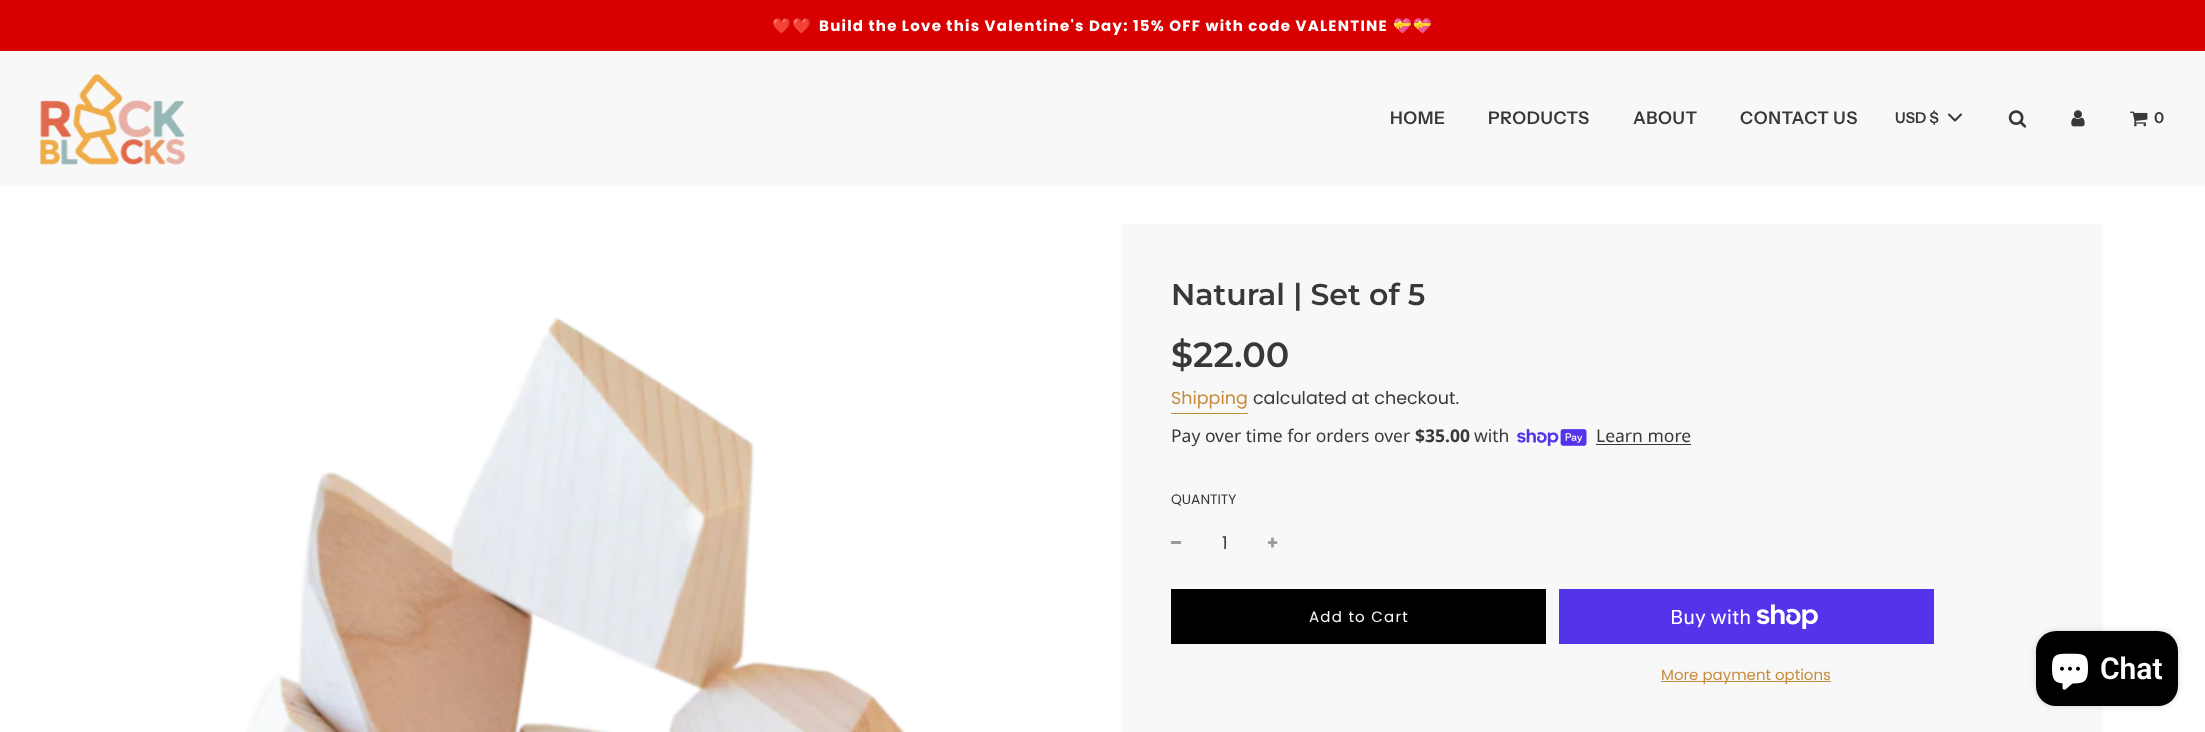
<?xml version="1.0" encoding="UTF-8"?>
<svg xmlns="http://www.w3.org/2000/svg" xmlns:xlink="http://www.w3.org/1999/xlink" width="2205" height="732">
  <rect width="100%" height="100%" fill="#ffffff" />
  <rect width="2205" height="51" fill="#d80000" />
  <rect y="51" width="2205" height="135" fill="#f8f8f8" />
  <image x="39" y="74" width="147" height="92" xlink:href="image1.png" />
  <path d="M 1949 114.5 l 6 6 l 6 -6" fill="none" stroke="#383838" stroke-width="2.1" stroke-linecap="round" stroke-linejoin="round" />
  <image x="2008" y="110" width="19" height="18" xlink:href="image2.png" />
  <image x="2071" y="110" width="14" height="17" xlink:href="image3.png" />
  <image x="2130" y="111" width="18" height="16" xlink:href="image4.png" />
  <image x="245" y="317" width="660" height="415" xlink:href="image5.png" />
  <rect x="1121" y="224" width="982" height="508" fill="#f8f8f8" />
  <rect x="1171" y="413" width="77" height="1" fill="#c68c3e" />
  <image x="1517" y="429" width="70" height="17" xlink:href="image6.png" />
  <rect x="1596" y="444" width="95" height="1" fill="#383838" />
  <rect x="1171" y="541" width="10" height="3" fill="#989898" />
  <image x="1268" y="537" width="10" height="11" xlink:href="image7.png" />
  <rect x="1171" y="589" width="375" height="55" fill="#000000" />
  <rect x="1559" y="589" width="375" height="55" fill="#5433eb" />
  <image x="1756" y="604" width="62" height="25" xlink:href="image8.png" />
  <rect x="1661" y="681" width="170" height="1" fill="#c68c3e" />
  <rect x="2036" y="631" width="142" height="75" rx="20" fill="#000000" fill-opacity="0.15" filter="blur(3px)" />
  <rect x="2036" y="631" width="142" height="75" rx="20" fill="#000000" />
  <image x="2052" y="653" width="36" height="37" xlink:href="image9.png" />
  <text x="772" y="31" style="font-family: Noto Color Emoji; font-size: 15px; font-weight: bold; letter-spacing: 1.25px; fill: #ffffff">❤️❤️</text>
  <text x="819" y="31" word-spacing="-0.25" style="font-family: Poppins; font-size: 15px; font-weight: bold; letter-spacing: 1.25px; fill: #ffffff">Build the Love this Valentine's Day: 15% OFF with code VALENTINE</text>
  <text x="1393" y="31" style="font-family: Noto Color Emoji; font-size: 15px; font-weight: bold; letter-spacing: 1.25px; fill: #ffffff">💝💝</text>
  <text x="1390" y="124" style="font-family: Instrument Sans; font-size: 17.5px; font-weight: 600; letter-spacing: 0.6px; fill: #383838">HOME</text>
  <text x="1488" y="124" style="font-family: Instrument Sans; font-size: 17.5px; font-weight: 600; letter-spacing: 0.6px; fill: #383838">PRODUCTS</text>
  <text x="1633" y="124" style="font-family: Instrument Sans; font-size: 17.5px; font-weight: 600; letter-spacing: 0.6px; fill: #383838">ABOUT</text>
  <text x="1740" y="124" style="font-family: Instrument Sans; font-size: 17.5px; font-weight: 600; letter-spacing: 0.6px; fill: #383838">CONTACT US</text>
  <text x="1895" y="123" style="font-family: Instrument Sans; font-size: 15px; font-weight: 600; fill: #383838">USD $</text>
  <text x="2154" y="123" style="font-family: Instrument Sans; font-size: 15px; font-weight: 600; fill: #383838">0</text>
  <text x="1171" y="305" style="font-family: Montserrat; font-size: 30px; font-weight: 600; fill: #383838">Natural | Set of 5</text>
  <text x="1171" y="367" style="font-family: Montserrat; font-size: 35px; font-weight: 600; fill: #383838">$22.00</text>
  <text x="1171" y="404" style="font-family: Poppins; font-size: 17.5px; fill: #c68c3e">Shipping</text>
  <text x="1253" y="404" style="font-family: Poppins; font-size: 17.5px; fill: #383838">calculated at checkout.</text>
  <text x="1171" y="442" style="font-family: Noto Sans; font-size: 17.5px; fill: #383838">Pay over time for orders over</text>
  <text x="1415" y="442" style="font-family: Noto Sans; font-size: 17.5px; font-weight: bold; fill: #383838">$35.00</text>
  <text x="1474" y="442" style="font-family: Noto Sans; font-size: 17.5px; fill: #383838">with</text>
  <text x="1596" y="442" style="font-family: Noto Sans; font-size: 17.5px; fill: #383838">Learn more</text>
  <text x="1171" y="504" style="font-family: Poppins; font-size: 13.75px; fill: #383838">QUANTITY</text>
  <text x="1222" y="549" style="font-family: Poppins; font-size: 17.5px; fill: #383838">1</text>
  <text x="1309" y="622" style="font-family: Poppins; font-size: 15px; letter-spacing: 1.25px; fill: #f8f8f8">Add to Cart</text>
  <text x="1670" y="624" style="font-family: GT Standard; font-size: 20px; fill: #ffffff">Buy with</text>
  <text x="1661" y="680" style="font-family: Poppins; font-size: 15px; fill: #c68c3e">More payment options</text>
  <text x="2100" y="679" style="font-family: Roboto; font-size: 30px; font-weight: 600; fill: #ffffff">Chat</text>
</svg>
